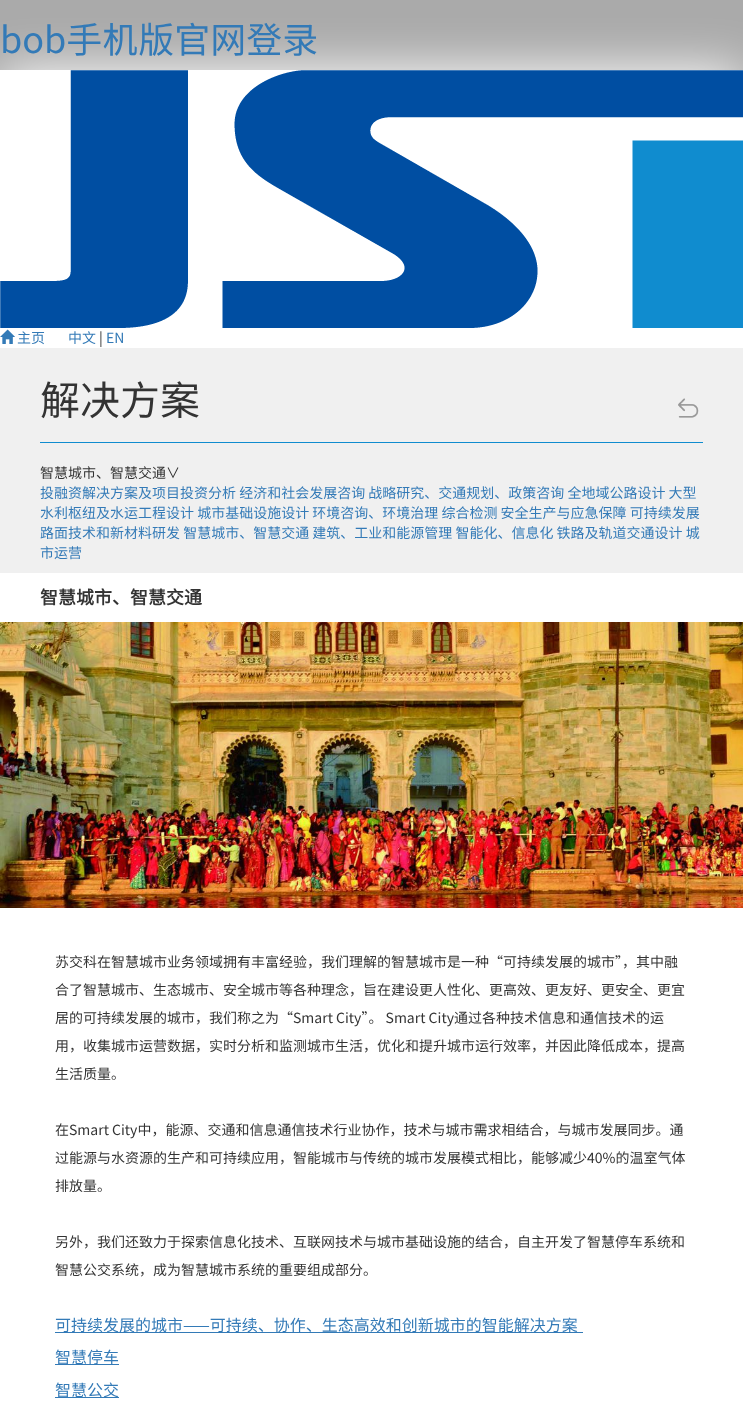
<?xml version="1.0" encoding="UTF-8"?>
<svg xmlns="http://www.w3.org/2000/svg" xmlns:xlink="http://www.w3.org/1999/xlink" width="743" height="1410">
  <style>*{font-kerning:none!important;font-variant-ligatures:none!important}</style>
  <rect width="100%" height="100%" fill="#aaaaaa" />
  <rect y="70" width="743" height="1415" fill="#ffffff" filter="blur(25px)" />
  <rect y="70" width="743" height="1340" fill="#ffffff" />
  <image x="0" y="70" width="743" height="258" xlink:href="image1.png" />
  <image x="0" y="329" width="15" height="15" xlink:href="image2.png" />
  <rect y="348" width="743" height="225" fill="#f0f0f0" />
  <rect x="40" y="442" width="663" height="1" fill="#108ccf" />
  <image x="678" y="398" width="21" height="20" xlink:href="image3.png" />
  <image x="0" y="622" width="743" height="286" xlink:href="image4.png" />
  <rect x="55" y="1332" width="528" height="1" fill="#337ab7" />
  <rect x="55" y="1364" width="64" height="1" fill="#337ab7" />
  <rect x="55" y="1397" width="64" height="1" fill="#337ab7" />
  <text x="0" y="53" style="font-family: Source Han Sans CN; font-size: 36px; fill: #337ab7">bob手机版官网登录</text>
  <text x="17" y="343" style="font-family: Source Han Sans CN; font-size: 14px; fill: #337ab7">主页</text>
  <text x="68" y="343" style="font-family: Source Han Sans CN; font-size: 14px; fill: #337ab7">中文</text>
  <text x="99" y="343" style="font-family: Source Han Sans CN; font-size: 14px; fill: #333333">|</text>
  <text x="106" y="343" style="font-family: Source Han Sans CN; font-size: 14px; fill: #337ab7">EN</text>
  <text x="40" y="415" style="font-family: Source Han Sans CN; font-size: 40px; fill: #333333">解决方案</text>
  <text x="40" y="478" style="font-family: Source Han Sans CN; font-size: 14px; fill: #333333">智慧城市、智慧交通∨</text>
  <text x="40" y="498" style="font-family: Source Han Sans CN; font-size: 14px; fill: #337ab7">投融资解决方案及项目投资分析 经济和社会发展咨询 战略研究、交通规划、政策咨询 全地域公路设计 大型</text>
  <text x="40" y="518" style="font-family: Source Han Sans CN; font-size: 14px; fill: #337ab7">水利枢纽及水运工程设计 城市基础设施设计 环境咨询、环境治理 综合检测 安全生产与应急保障 可持续发展</text>
  <text x="40" y="538" style="font-family: Source Han Sans CN; font-size: 14px; fill: #337ab7">路面技术和新材料研发 智慧城市、智慧交通 建筑、工业和能源管理 智能化、信息化 铁路及轨道交通设计 城</text>
  <text x="40" y="558" style="font-family: Source Han Sans CN; font-size: 14px; fill: #337ab7">市运营</text>
  <text x="40" y="604" style="font-family: Source Han Sans CN; font-size: 18px; font-weight: bold; fill: #333333">智慧城市、智慧交通</text>
  <text x="55" y="967" style="font-family: Source Han Sans CN; font-size: 14px; fill: #333333">苏交科在智慧城市业务领域拥有丰富经验，我们理解的智慧城市是一种“可持续发展的城市”，其中融</text>
  <text x="55" y="995" style="font-family: Source Han Sans CN; font-size: 14px; fill: #333333">合了智慧城市、生态城市、安全城市等各种理念，旨在建设更人性化、更高效、更友好、更安全、更宜</text>
  <text x="55" y="1023" style="font-family: Source Han Sans CN; font-size: 14px; fill: #333333">居的可持续发展的城市，我们称之为“Smart City”。 Smart City通过各种技术信息和通信技术的运</text>
  <text x="55" y="1051" style="font-family: Source Han Sans CN; font-size: 14px; fill: #333333">用，收集城市运营数据，实时分析和监测城市生活，优化和提升城市运行效率，并因此降低成本，提高</text>
  <text x="55" y="1079" style="font-family: Source Han Sans CN; font-size: 14px; fill: #333333">生活质量。</text>
  <text x="55" y="1135" style="font-family: Source Han Sans CN; font-size: 14px; fill: #333333">在Smart City中，能源、交通和信息通信技术行业协作，技术与城市需求相结合，与城市发展同步。通</text>
  <text x="55" y="1163" style="font-family: Source Han Sans CN; font-size: 14px; fill: #333333">过能源与水资源的生产和可持续应用，智能城市与传统的城市发展模式相比，能够减少40%的温室气体</text>
  <text x="55" y="1191" style="font-family: Source Han Sans CN; font-size: 14px; fill: #333333">排放量。</text>
  <text x="55" y="1247" style="font-family: Source Han Sans CN; font-size: 14px; fill: #333333">另外，我们还致力于探索信息化技术、互联网技术与城市基础设施的结合，自主开发了智慧停车系统和</text>
  <text x="55" y="1275" style="font-family: Source Han Sans CN; font-size: 14px; fill: #333333">智慧公交系统，成为智慧城市系统的重要组成部分。</text>
  <text x="55" y="1331" style="font-family: Source Han Sans CN; font-size: 16px; fill: #337ab7">可持续发展的城市——可持续、协作、生态高效和创新城市的智能解决方案</text>
  <text x="55" y="1363" style="font-family: Source Han Sans CN; font-size: 16px; fill: #337ab7">智慧停车</text>
  <text x="55" y="1396" style="font-family: Source Han Sans CN; font-size: 16px; fill: #337ab7">智慧公交</text>
</svg>
